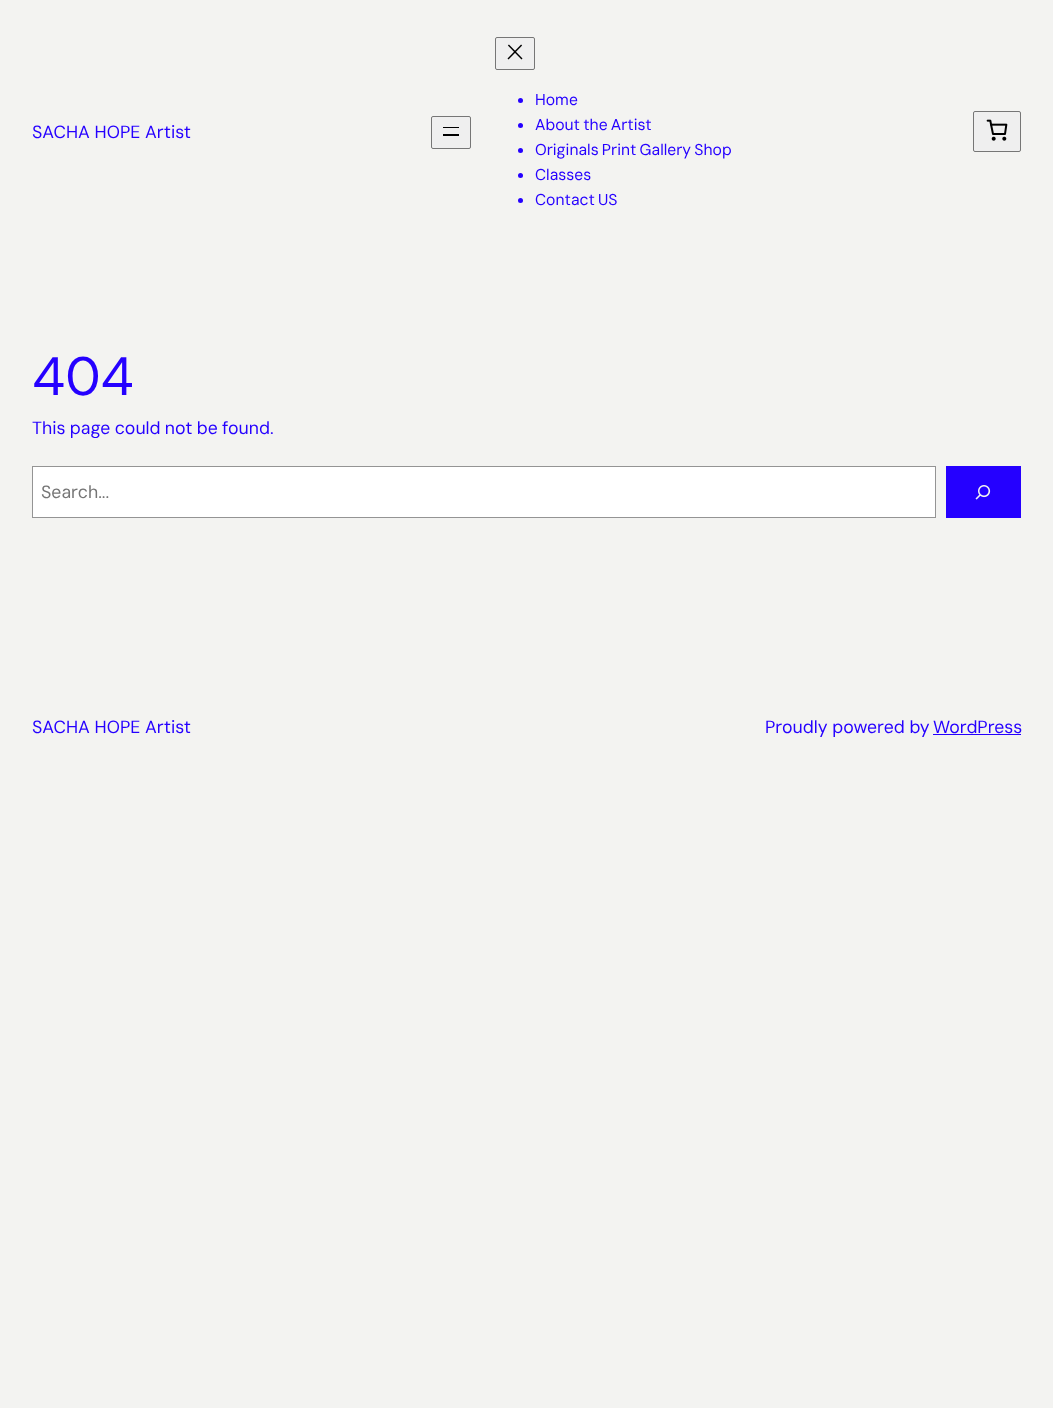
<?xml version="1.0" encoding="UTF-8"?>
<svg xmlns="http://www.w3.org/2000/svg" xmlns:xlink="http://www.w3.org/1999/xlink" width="1053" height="1408">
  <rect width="100%" height="100%" fill="#f3f3f1" />
  <rect x="431.5" y="116.5" width="39" height="32" rx="1.5" fill="#efefef" stroke="#767676" />
  <rect x="443" y="127" width="16" height="1" fill="#000000" />
  <rect x="443" y="134" width="16" height="2" fill="#000000" />
  <rect x="495.5" y="37.5" width="39" height="32" rx="1.5" fill="#efefef" stroke="#767676" />
  <image x="507" y="44" width="16" height="16" xlink:href="image1.png" />
  <circle cx="520.5" cy="100.5" r="2.5" fill="#2500ff" />
  <circle cx="520.5" cy="125.5" r="2.5" fill="#2500ff" />
  <circle cx="520.5" cy="150.5" r="2.5" fill="#2500ff" />
  <circle cx="520.5" cy="175.5" r="2.5" fill="#2500ff" />
  <circle cx="520.5" cy="200.5" r="2.5" fill="#2500ff" />
  <rect x="973.5" y="111.5" width="47" height="40" rx="1.5" fill="#efefef" stroke="#767676" />
  <image x="986" y="119" width="22" height="22" xlink:href="image2.png" />
  <rect x="32.5" y="466.5" width="903" height="51" fill="#ffffff" stroke="#949494" />
  <rect x="946" y="466" width="75" height="52" fill="#2500ff" />
  <image x="975" y="485" width="16" height="15" xlink:href="image3.png" />
  <rect x="933" y="734" width="88" height="1" fill="#2500ff" />
  <text x="32" y="138" style="font-family: DM Sans; font-size: 17.7px; fill: #2500ff">SACHA HOPE Artist</text>
  <text x="535" y="105" style="font-family: DM Sans; font-size: 15.7px; fill: #2500ff">Home</text>
  <text x="535" y="130" word-spacing="-1" style="font-family: DM Sans; font-size: 15.7px; fill: #2500ff">About the Artist</text>
  <text x="535" y="155" word-spacing="-1" style="font-family: DM Sans; font-size: 15.7px; fill: #2500ff">Originals Print Gallery Shop</text>
  <text x="535" y="180" style="font-family: DM Sans; font-size: 15.7px; fill: #2500ff">Classes</text>
  <text x="535" y="205" word-spacing="-1" style="font-family: DM Sans; font-size: 15.7px; fill: #2500ff">Contact US</text>
  <text x="32" y="395" style="font-family: DM Sans; font-size: 54px; fill: #2500ff">404</text>
  <text x="32" y="434" word-spacing="-0.5" style="font-family: DM Sans; font-size: 17.7px; fill: #2500ff">This page could not be found.</text>
  <text x="41" y="498" style="font-family: DM Sans; font-size: 17.7px; fill: #757575">Search...</text>
  <text x="32" y="733" style="font-family: DM Sans; font-size: 17.7px; fill: #2500ff">SACHA HOPE Artist</text>
  <text x="765" y="733" style="font-family: DM Sans; font-size: 17.7px; fill: #2500ff">Proudly powered by</text>
  <text x="933" y="733" style="font-family: DM Sans; font-size: 17.7px; fill: #2500ff">WordPress</text>
</svg>
